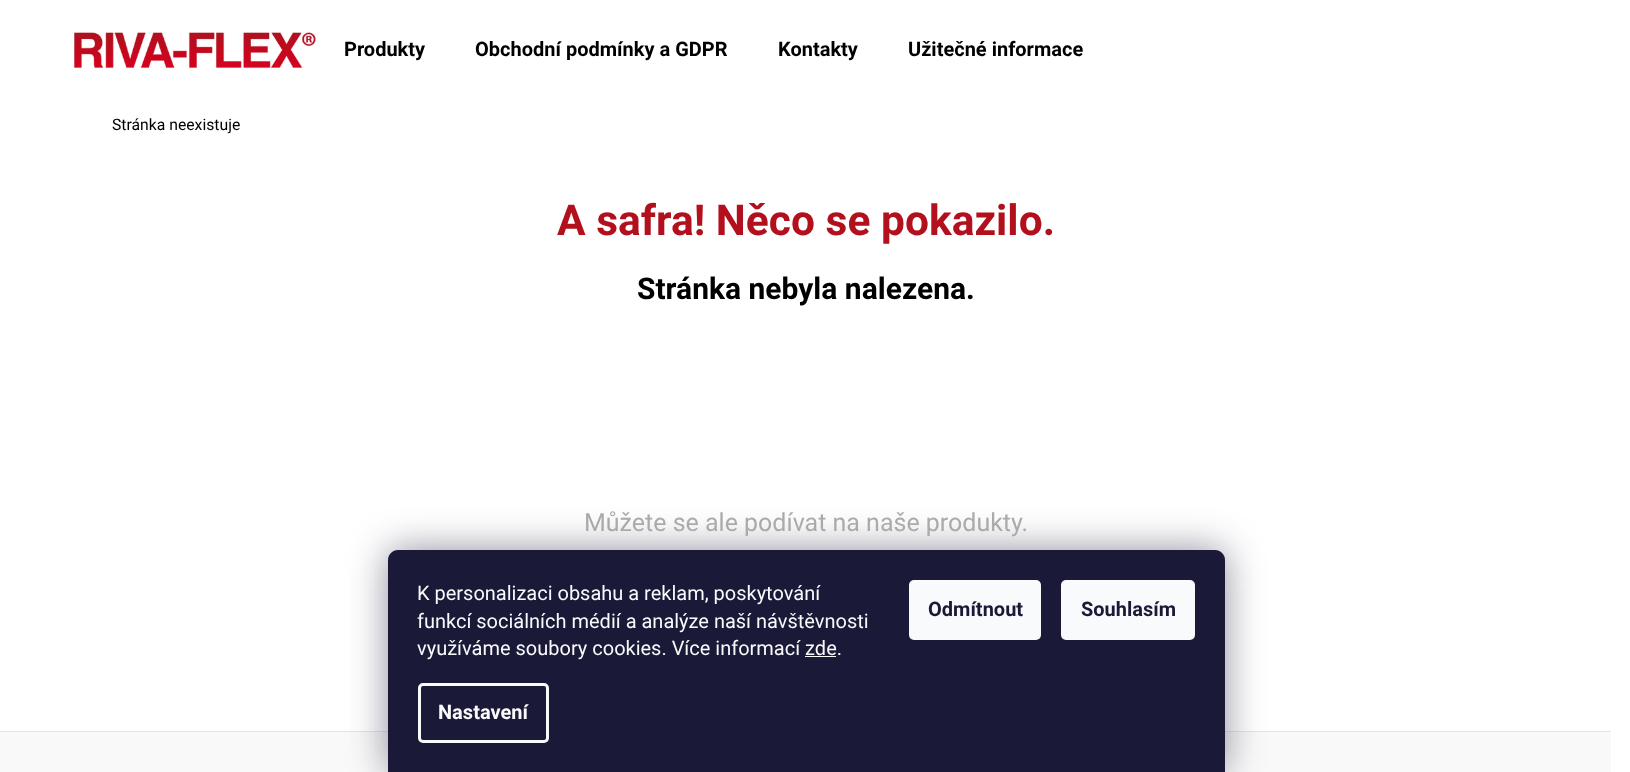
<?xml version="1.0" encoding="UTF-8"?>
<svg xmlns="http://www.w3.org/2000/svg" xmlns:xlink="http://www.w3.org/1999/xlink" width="1630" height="772">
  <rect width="100%" height="100%" fill="#ffffff" />
  <image x="74" y="32" width="242" height="37" xlink:href="image1.png" />
  <rect y="732" width="1611" height="40" fill="#f9f9f9" />
  <rect y="731" width="1611" height="1" fill="#e6e6e6" />
  <rect x="388" y="550" width="837" height="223" rx="10" fill="#1b1939" fill-opacity="0.5" filter="blur(19px)" />
  <path d="M 398 550 h 817 c 5.5 0 10 4.5 10 10 v 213 h -837 v -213 c 0 -5.5 4.5 -10 10 -10 z" fill="#1a1937" />
  <rect x="805" y="656" width="31" height="1" fill="#f8fafb" />
  <rect x="419.5" y="684.5" width="128" height="57" rx="3.5" fill="none" stroke="#f8fafb" stroke-width="3" />
  <rect x="909" y="580" width="132" height="60" rx="5" fill="#f8fafb" />
  <rect x="1061" y="580" width="134" height="60" rx="5" fill="#f8fafb" />
  <text x="344" y="56" style="font-family: Roboto; font-size: 20px; font-weight: bold; fill: #000000">Produkty</text>
  <text x="475" y="56" style="font-family: Roboto; font-size: 20px; font-weight: bold; fill: #000000">Obchodní podmínky a GDPR</text>
  <text x="778" y="56" style="font-family: Roboto; font-size: 20px; font-weight: bold; fill: #000000">Kontakty</text>
  <text x="908" y="56" style="font-family: Roboto; font-size: 20px; font-weight: bold; fill: #000000">Užitečné informace</text>
  <text x="112" y="130" style="font-family: Roboto; font-size: 15.75px; fill: #000000">Stránka neexistuje</text>
  <text x="557" y="235" style="font-family: Roboto; font-size: 42.5px; font-weight: bold; fill: #b3101d">A safra! Něco se pokazilo.</text>
  <text x="637" y="299" style="font-family: Roboto; font-size: 30px; font-weight: bold; fill: #000000">Stránka nebyla nalezena.</text>
  <text x="584" y="531" style="font-family: Roboto; font-size: 25px; fill: #aaaaaa">Můžete se ale podívat na naše produkty.</text>
  <text x="417" y="600" style="font-family: Roboto; font-size: 20px; fill: #f8fafb">K personalizaci obsahu a reklam, poskytování</text>
  <text x="417" y="628" style="font-family: Roboto; font-size: 20px; fill: #f8fafb">funkcí sociálních médií a analýze naší návštěvnosti</text>
  <text x="417" y="655" style="font-family: Roboto; font-size: 20px; fill: #f8fafb">využíváme soubory cookies. Více informací zde.</text>
  <text x="438" y="719" style="font-family: Roboto; font-size: 20px; font-weight: bold; fill: #f8fafb">Nastavení</text>
  <text x="928" y="616" style="font-family: Roboto; font-size: 20px; font-weight: bold; fill: #1a1937">Odmítnout</text>
  <text x="1081" y="616" style="font-family: Roboto; font-size: 20px; font-weight: bold; fill: #1a1937">Souhlasím</text>
</svg>
